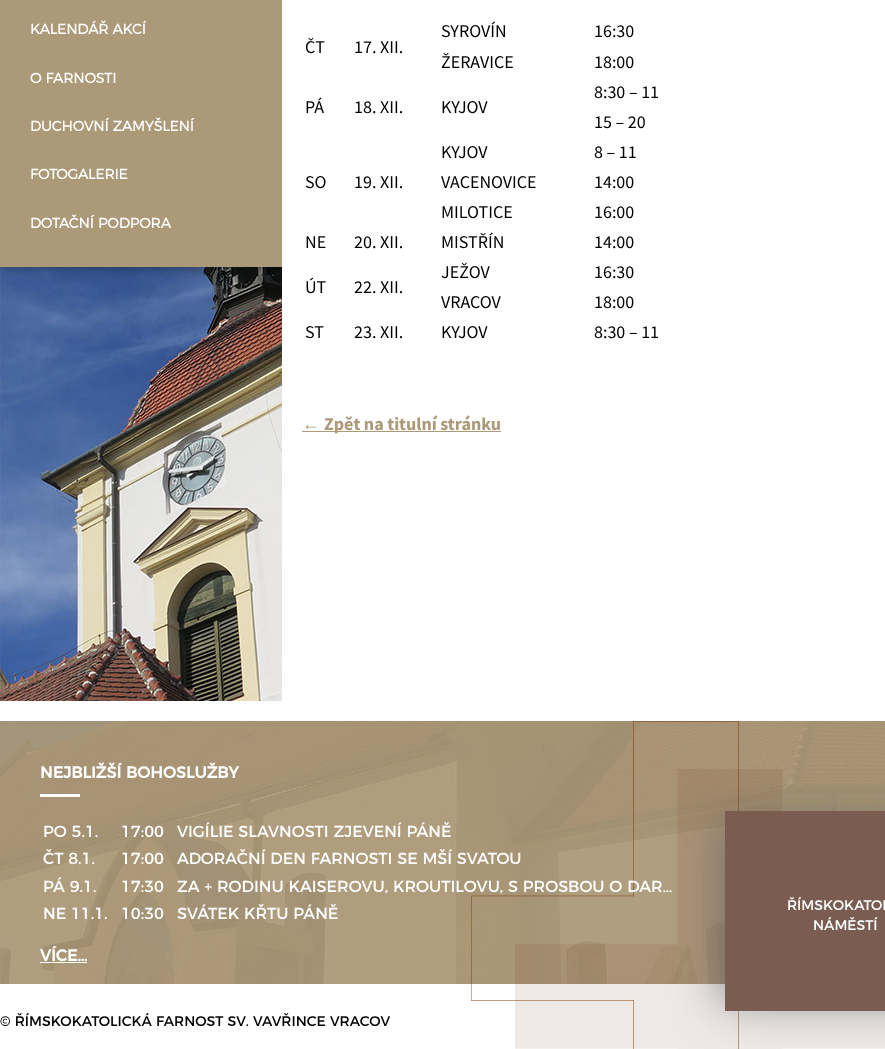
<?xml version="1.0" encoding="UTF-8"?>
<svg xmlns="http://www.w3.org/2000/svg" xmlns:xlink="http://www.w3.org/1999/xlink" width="885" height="1049">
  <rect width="100%" height="100%" fill="#ffffff" />
  <rect width="282" height="267" fill="#ac9978" />
  <image x="0" y="267" width="282" height="434" xlink:href="image1.png" />
  <rect x="302" y="431" width="199" height="1" fill="#ac9978" />
  <image x="0" y="721" width="885" height="328" xlink:href="image2.png" />
  <rect x="40" y="794" width="40" height="3" fill="#ffffff" />
  <rect x="40" y="962" width="47" height="1" fill="#ffffff" />
  <rect x="721" y="822" width="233" height="180" fill="#666666" fill-opacity="0.75" filter="blur(23px)" />
  <rect x="725" y="811" width="160" height="200" fill="#7a5c50" />
  <text x="30" y="34" style="font-family: Montserrat; font-size: 14px; font-weight: bold; fill: #ffffff">KALENDÁŘ AKCÍ</text>
  <text x="30" y="83" style="font-family: Montserrat; font-size: 14px; font-weight: bold; fill: #ffffff">O FARNOSTI</text>
  <text x="30" y="131" style="font-family: Montserrat; font-size: 14px; font-weight: bold; fill: #ffffff">DUCHOVNÍ ZAMYŠLENÍ</text>
  <text x="30" y="179" style="font-family: Montserrat; font-size: 14px; font-weight: bold; fill: #ffffff">FOTOGALERIE</text>
  <text x="30" y="228" style="font-family: Montserrat; font-size: 14px; font-weight: bold; fill: #ffffff">DOTAČNÍ PODPORA</text>
  <text x="441" y="37" style="font-family: Source Sans Pro; font-size: 18px; fill: #000000">SYROVÍN</text>
  <text x="594" y="37" style="font-family: Source Sans Pro; font-size: 18px; fill: #000000">16:30</text>
  <text x="305" y="53" style="font-family: Source Sans Pro; font-size: 18px; fill: #000000">ČT</text>
  <text x="354" y="53" style="font-family: Source Sans Pro; font-size: 18px; fill: #000000">17. XII.</text>
  <text x="441" y="68" style="font-family: Source Sans Pro; font-size: 18px; fill: #000000">ŽERAVICE</text>
  <text x="594" y="68" style="font-family: Source Sans Pro; font-size: 18px; fill: #000000">18:00</text>
  <text x="594" y="98" style="font-family: Source Sans Pro; font-size: 18px; fill: #000000">8:30 – 11</text>
  <text x="305" y="113" style="font-family: Source Sans Pro; font-size: 18px; fill: #000000">PÁ</text>
  <text x="354" y="113" style="font-family: Source Sans Pro; font-size: 18px; fill: #000000">18. XII.</text>
  <text x="441" y="113" style="font-family: Source Sans Pro; font-size: 18px; fill: #000000">KYJOV</text>
  <text x="594" y="128" style="font-family: Source Sans Pro; font-size: 18px; fill: #000000">15 – 20</text>
  <text x="441" y="158" style="font-family: Source Sans Pro; font-size: 18px; fill: #000000">KYJOV</text>
  <text x="594" y="158" style="font-family: Source Sans Pro; font-size: 18px; fill: #000000">8 – 11</text>
  <text x="305" y="188" style="font-family: Source Sans Pro; font-size: 18px; fill: #000000">SO</text>
  <text x="354" y="188" style="font-family: Source Sans Pro; font-size: 18px; fill: #000000">19. XII.</text>
  <text x="441" y="188" style="font-family: Source Sans Pro; font-size: 18px; fill: #000000">VACENOVICE</text>
  <text x="594" y="188" style="font-family: Source Sans Pro; font-size: 18px; fill: #000000">14:00</text>
  <text x="441" y="218" style="font-family: Source Sans Pro; font-size: 18px; fill: #000000">MILOTICE</text>
  <text x="594" y="218" style="font-family: Source Sans Pro; font-size: 18px; fill: #000000">16:00</text>
  <text x="305" y="248" style="font-family: Source Sans Pro; font-size: 18px; fill: #000000">NE</text>
  <text x="354" y="248" style="font-family: Source Sans Pro; font-size: 18px; fill: #000000">20. XII.</text>
  <text x="441" y="248" style="font-family: Source Sans Pro; font-size: 18px; fill: #000000">MISTŘÍN</text>
  <text x="594" y="248" style="font-family: Source Sans Pro; font-size: 18px; fill: #000000">14:00</text>
  <text x="441" y="278" style="font-family: Source Sans Pro; font-size: 18px; fill: #000000">JEŽOV</text>
  <text x="594" y="278" style="font-family: Source Sans Pro; font-size: 18px; fill: #000000">16:30</text>
  <text x="305" y="293" style="font-family: Source Sans Pro; font-size: 18px; fill: #000000">ÚT</text>
  <text x="354" y="293" style="font-family: Source Sans Pro; font-size: 18px; fill: #000000">22. XII.</text>
  <text x="441" y="308" style="font-family: Source Sans Pro; font-size: 18px; fill: #000000">VRACOV</text>
  <text x="594" y="308" style="font-family: Source Sans Pro; font-size: 18px; fill: #000000">18:00</text>
  <text x="305" y="338" style="font-family: Source Sans Pro; font-size: 18px; fill: #000000">ST</text>
  <text x="354" y="338" style="font-family: Source Sans Pro; font-size: 18px; fill: #000000">23. XII.</text>
  <text x="441" y="338" style="font-family: Source Sans Pro; font-size: 18px; fill: #000000">KYJOV</text>
  <text x="594" y="338" style="font-family: Source Sans Pro; font-size: 18px; fill: #000000">8:30 – 11</text>
  <text x="302" y="430" style="font-family: Liberation Sans; font-size: 18px; font-weight: bold; fill: #ac9978">←</text>
  <text x="324" y="430" style="font-family: Source Sans Pro; font-size: 18px; font-weight: bold; fill: #ac9978">Zpět na titulní stránku</text>
  <text x="40" y="778" style="font-family: 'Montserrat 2'; font-size: 16px; font-weight: bold; fill: #ffffff">NEJBLIŽŠÍ BOHOSLUŽBY</text>
  <text x="43" y="837" style="font-family: Montserrat; font-size: 16px; fill: #ffffff">PO 5.1.</text>
  <text x="121" y="837" style="font-family: Montserrat; font-size: 16px; fill: #ffffff">17:00</text>
  <text x="177" y="837" style="font-family: Montserrat; font-size: 16px; fill: #ffffff">VIGÍLIE SLAVNOSTI ZJEVENÍ PÁNĚ</text>
  <text x="43" y="864" style="font-family: Montserrat; font-size: 16px; fill: #ffffff">ČT 8.1.</text>
  <text x="121" y="864" style="font-family: Montserrat; font-size: 16px; fill: #ffffff">17:00</text>
  <text x="177" y="864" style="font-family: Montserrat; font-size: 16px; fill: #ffffff">ADORAČNÍ DEN FARNOSTI SE MŠÍ SVATOU</text>
  <text x="43" y="892" style="font-family: Montserrat; font-size: 16px; fill: #ffffff">PÁ 9.1.</text>
  <text x="121" y="892" style="font-family: Montserrat; font-size: 16px; fill: #ffffff">17:30</text>
  <text x="177" y="892" style="font-family: Montserrat; font-size: 16px; fill: #ffffff">ZA + RODINU KAISEROVU, KROUTILOVU, S PROSBOU O DAR…</text>
  <text x="43" y="919" style="font-family: Montserrat; font-size: 16px; fill: #ffffff">NE 11.1.</text>
  <text x="121" y="919" style="font-family: Montserrat; font-size: 16px; fill: #ffffff">10:30</text>
  <text x="177" y="919" style="font-family: Montserrat; font-size: 16px; fill: #ffffff">SVÁTEK KŘTU PÁNĚ</text>
  <text x="40" y="961" style="font-family: 'Montserrat 2'; font-size: 16px; font-weight: bold; fill: #ffffff">VÍCE…</text>
  <text x="787" y="910" style="font-family: Montserrat; font-size: 14px; fill: #ffffff">ŘÍMSKOKATOL</text>
  <text x="813" y="930" style="font-family: Montserrat; font-size: 14px; fill: #ffffff">NÁMĚSTÍ</text>
  <text x="0" y="1026" style="font-family: Montserrat; font-size: 14px; fill: #000000">© ŘÍMSKOKATOLICKÁ FARNOST SV. VAVŘINCE VRACOV</text>
</svg>
